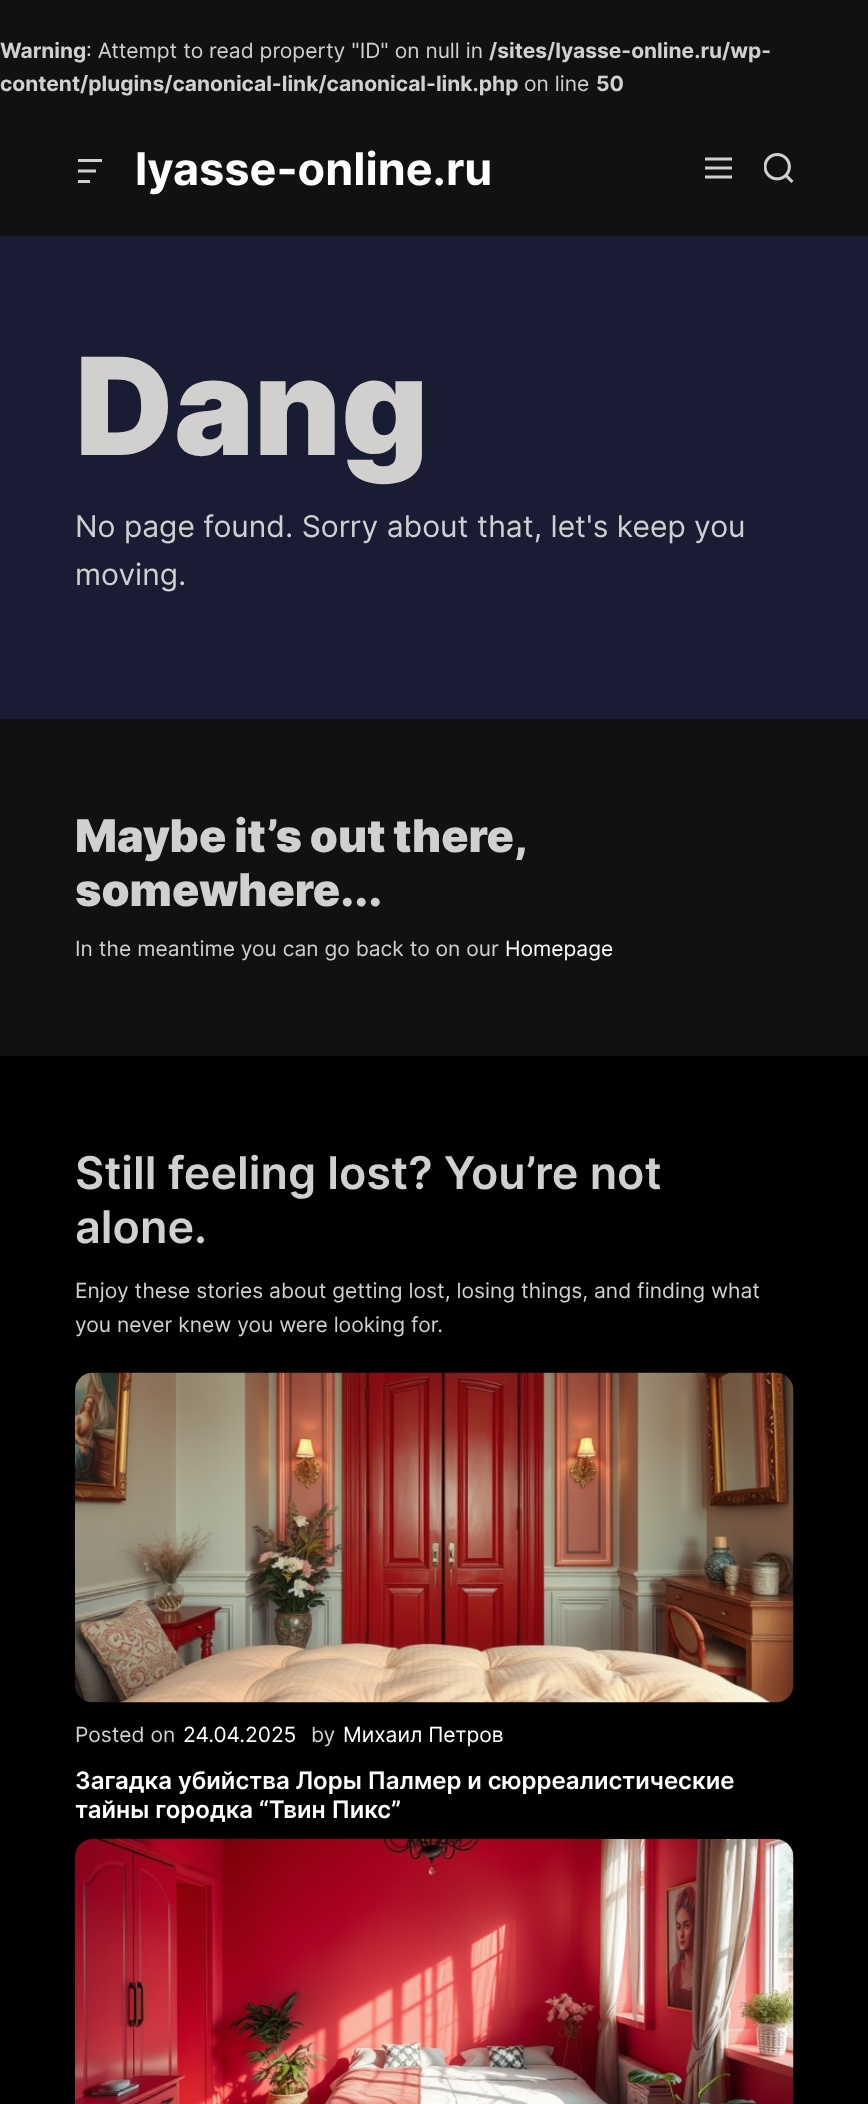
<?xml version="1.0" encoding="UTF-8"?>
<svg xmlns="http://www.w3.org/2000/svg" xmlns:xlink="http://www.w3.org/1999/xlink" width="868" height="2104">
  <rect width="100%" height="100%" fill="#111111" />
  <image x="78" y="159" width="24" height="24" xlink:href="image1.png" />
  <image x="705" y="157" width="27" height="22" xlink:href="image2.png" />
  <image x="764" y="153" width="30" height="30" xlink:href="image3.png" />
  <rect y="236" width="868" height="483" fill="#191c33" />
  <rect y="1056" width="868" height="1048" fill="#000000" />
  <image x="75" y="1372" width="719" height="331" xlink:href="image4.png" />
  <image x="75" y="1839" width="719" height="265" xlink:href="image5.png" />
  <text x="0" y="58" style="font-family: Inter; font-size: 21px; font-weight: bold; fill: #d1d0cf">Warning</text>
  <text x="86" y="58" style="font-family: Inter; font-size: 21px; fill: #d1d0cf">: Attempt to read property "ID" on null in</text>
  <text x="489" y="58" style="font-family: Inter; font-size: 21px; font-weight: bold; fill: #d1d0cf">/sites/lyasse-online.ru/wp-</text>
  <text x="0" y="91" style="font-family: Inter; font-size: 21px; font-weight: bold; fill: #d1d0cf">content/plugins/canonical-link/canonical-link.php</text>
  <text x="524" y="91" style="font-family: Inter; font-size: 21px; fill: #d1d0cf">on line</text>
  <text x="596" y="91" style="font-family: Inter; font-size: 21px; font-weight: bold; fill: #d1d0cf">50</text>
  <text x="135" y="185" style="font-family: Inter; font-size: 45px; font-weight: bold; fill: #ffffff">lyasse-online.ru</text>
  <text x="75" y="455" style="font-family: Inter; font-size: 135px; font-weight: 900; fill: #d1d0cf">Dang</text>
  <text x="75" y="537" style="font-family: Inter; font-size: 30px; fill: #d1d0cf">No page found. Sorry about that, let's keep you</text>
  <text x="75" y="585" style="font-family: Inter; font-size: 30px; fill: #d1d0cf">moving.</text>
  <text x="75" y="852" word-spacing="-1" style="font-family: Inter; font-size: 45px; font-weight: 900; fill: #d1d0cf">Maybe it’s out there,</text>
  <text x="75" y="906" style="font-family: Inter; font-size: 45px; font-weight: 900; fill: #d1d0cf">somewhere...</text>
  <text x="75" y="956" style="font-family: Inter; font-size: 21px; fill: #d1d0cf">In the meantime you can go back to on our</text>
  <text x="505" y="956" style="font-family: Inter; font-size: 21px; fill: #ffffff">Homepage</text>
  <text x="75" y="1189" style="font-family: Inter; font-size: 45px; font-weight: 600; fill: #d1d0cf">Still feeling lost? You’re not</text>
  <text x="75" y="1243" style="font-family: Inter; font-size: 45px; font-weight: 600; fill: #d1d0cf">alone.</text>
  <text x="75" y="1298" style="font-family: Inter; font-size: 21px; fill: #d1d0cf">Enjoy these stories about getting lost, losing things, and finding what</text>
  <text x="75" y="1332" style="font-family: Inter; font-size: 21px; fill: #d1d0cf">you never knew you were looking for.</text>
  <text x="75" y="1742" style="font-family: Inter; font-size: 21px; fill: #d1d0cf">Posted on</text>
  <text x="183" y="1742" style="font-family: Inter; font-size: 21px; fill: #ffffff">24.04.2025</text>
  <text x="311" y="1742" style="font-family: Inter; font-size: 21px; fill: #d1d0cf">by</text>
  <text x="343" y="1742" style="font-family: Inter; font-size: 21px; fill: #ffffff">Михаил Петров</text>
  <text x="75" y="1789" style="font-family: Inter; font-size: 24px; font-weight: 600; fill: #ffffff">Загадка убийства Лоры Палмер и сюрреалистические</text>
  <text x="75" y="1818" style="font-family: Inter; font-size: 24px; font-weight: 600; fill: #ffffff">тайны городка “Твин Пикс”</text>
</svg>
